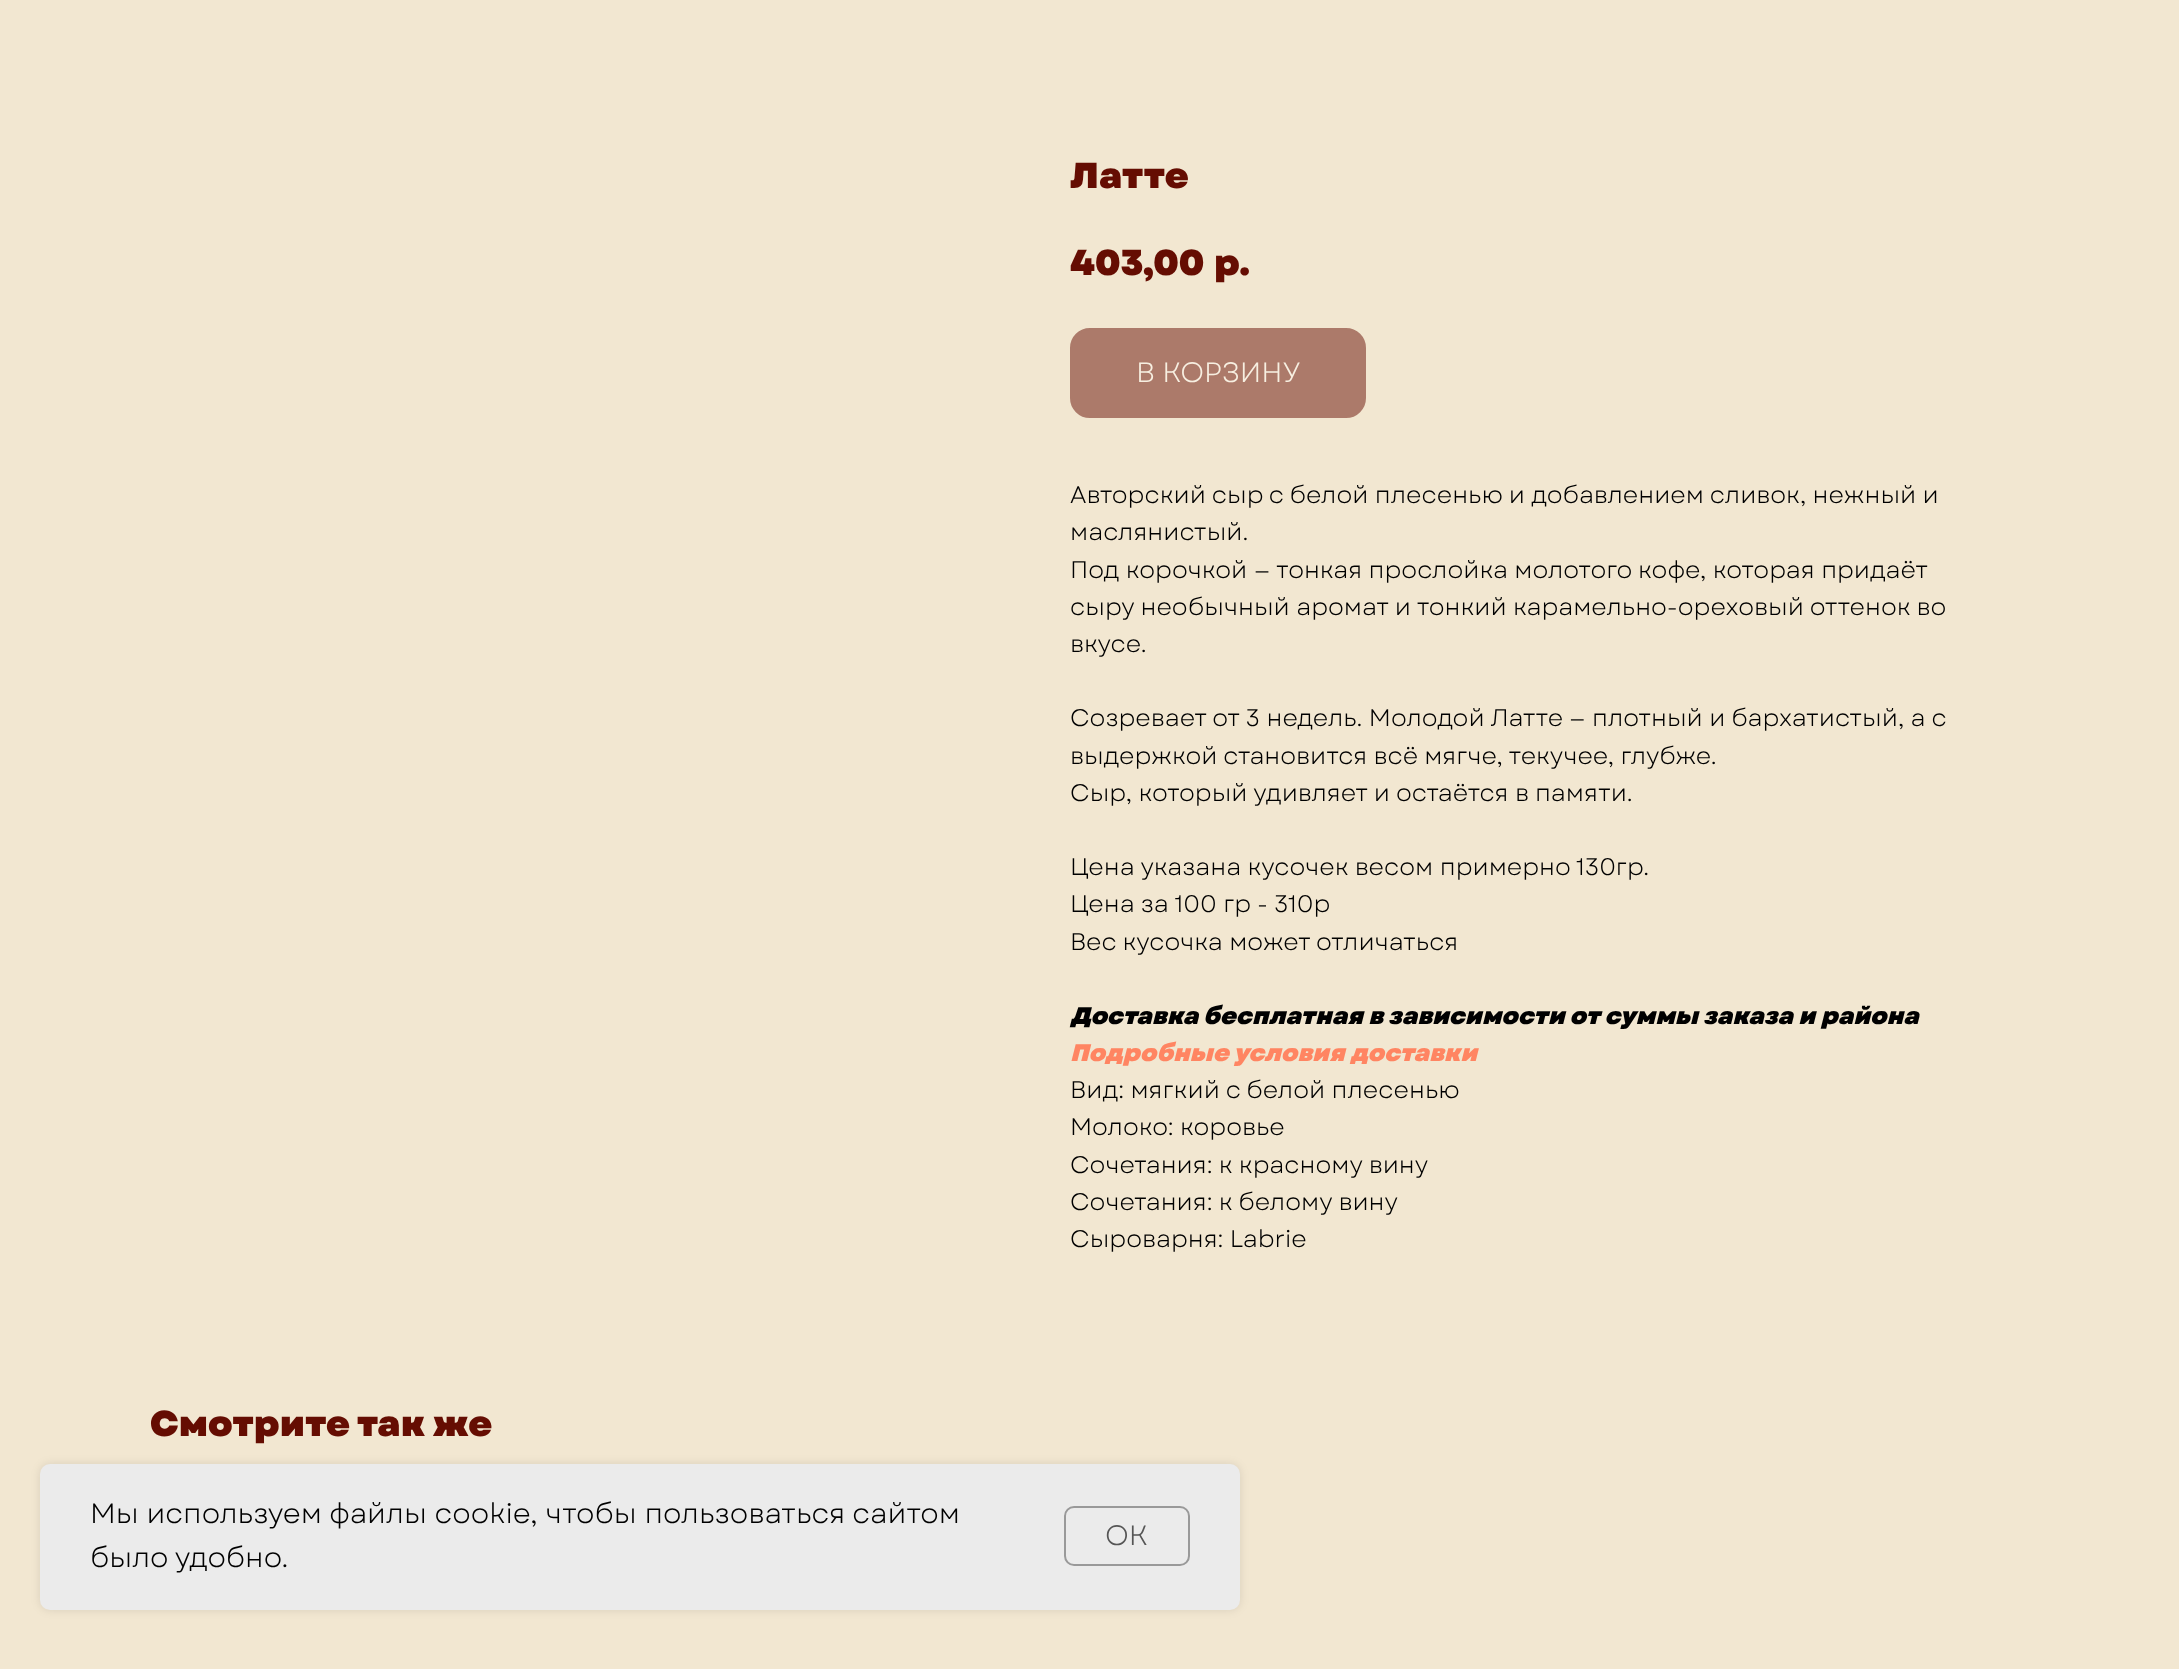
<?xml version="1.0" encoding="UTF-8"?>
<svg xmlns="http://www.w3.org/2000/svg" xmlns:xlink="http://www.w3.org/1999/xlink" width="2179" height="1669">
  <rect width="100%" height="100%" fill="#f2e7d1" />
  <rect x="1071" y="329" width="294" height="88" rx="19" fill="#ac7a6a" stroke="#ac7a6a" stroke-width="2" />
  <rect x="40" y="1464" width="1200" height="146" rx="10" fill="#000000" fill-opacity="0.1" filter="blur(5px)" />
  <rect x="40" y="1464" width="1200" height="146" rx="10" fill="#ebebeb" />
  <rect x="1065" y="1507" width="124" height="58" rx="9" fill="none" stroke="#999999" stroke-width="2" />
  <text x="1070" y="188" style="font-family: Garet; font-size: 36px; font-weight: 900; fill: #650d02">Латте</text>
  <text x="1070" y="275" style="font-family: Garet; font-size: 36px; font-weight: 900; fill: #650d02">403,00</text>
  <text x="1214" y="275" style="font-family: Garet; font-size: 36px; font-weight: 900; fill: #650d02">р.</text>
  <text x="1136" y="382" style="font-family: Garet; font-size: 28px; fill: #f7efe1">В КОРЗИНУ</text>
  <text x="1070" y="503" style="font-family: Garet; font-size: 24px; fill: #000000">Авторский сыр с белой плесенью и добавлением сливок, нежный и</text>
  <text x="1070" y="540" style="font-family: Garet; font-size: 24px; fill: #000000">маслянистый.</text>
  <text x="1070" y="578" style="font-family: Garet; font-size: 24px; fill: #000000">Под корочкой — тонкая прослойка молотого кофе, которая придаёт</text>
  <text x="1070" y="615" style="font-family: Garet; font-size: 24px; fill: #000000">сыру необычный аромат и тонкий карамельно-ореховый оттенок во</text>
  <text x="1070" y="652" style="font-family: Garet; font-size: 24px; fill: #000000">вкусе.</text>
  <text x="1070" y="726" style="font-family: Garet; font-size: 24px; fill: #000000">Созревает от 3 недель. Молодой Латте — плотный и бархатистый, а с</text>
  <text x="1070" y="764" style="font-family: Garet; font-size: 24px; fill: #000000">выдержкой становится всё мягче, текучее, глубже.</text>
  <text x="1070" y="801" style="font-family: Garet; font-size: 24px; fill: #000000">Сыр, который удивляет и остаётся в памяти.</text>
  <text x="1070" y="875" style="font-family: Garet; font-size: 24px; fill: #000000">Цена указана кусочек весом примерно 130гр.</text>
  <text x="1070" y="912" style="font-family: Garet; font-size: 24px; fill: #000000">Цена за 100 гр - 310р</text>
  <text x="1070" y="950" style="font-family: Garet; font-size: 24px; fill: #000000">Вес кусочка может отличаться</text>
  <text x="1070" y="1024" style="font-family: Garet; font-size: 24px; font-weight: 900; font-style: italic; fill: #000000">Доставка бесплатная в зависимости от суммы заказа и района</text>
  <text x="1070" y="1061" style="font-family: Garet; font-size: 24px; font-weight: 900; font-style: italic; fill: #ff8562">Подробные условия доставки</text>
  <text x="1070" y="1098" style="font-family: Garet; font-size: 24px; fill: #000000">Вид: мягкий с белой плесенью</text>
  <text x="1070" y="1135" style="font-family: Garet; font-size: 24px; fill: #000000">Молоко: коровье</text>
  <text x="1070" y="1173" style="font-family: Garet; font-size: 24px; fill: #000000">Сочетания: к красному вину</text>
  <text x="1070" y="1210" style="font-family: Garet; font-size: 24px; fill: #000000">Сочетания: к белому вину</text>
  <text x="1070" y="1247" style="font-family: Garet; font-size: 24px; fill: #000000">Сыроварня: Labrie</text>
  <text x="150" y="1436" style="font-family: Garet; font-size: 36px; font-weight: 900; fill: #650d02">Смотрите так же</text>
  <text x="90" y="1523" word-spacing="0.25" style="font-family: Garet; font-size: 28px; fill: #000000">Мы используем файлы cookie, чтобы пользоваться сайтом</text>
  <text x="90" y="1567" style="font-family: Garet; font-size: 28px; fill: #000000">было удобно.</text>
  <text x="1105" y="1545" style="font-family: Garet; font-size: 28px; fill: #555555">OK</text>
</svg>
